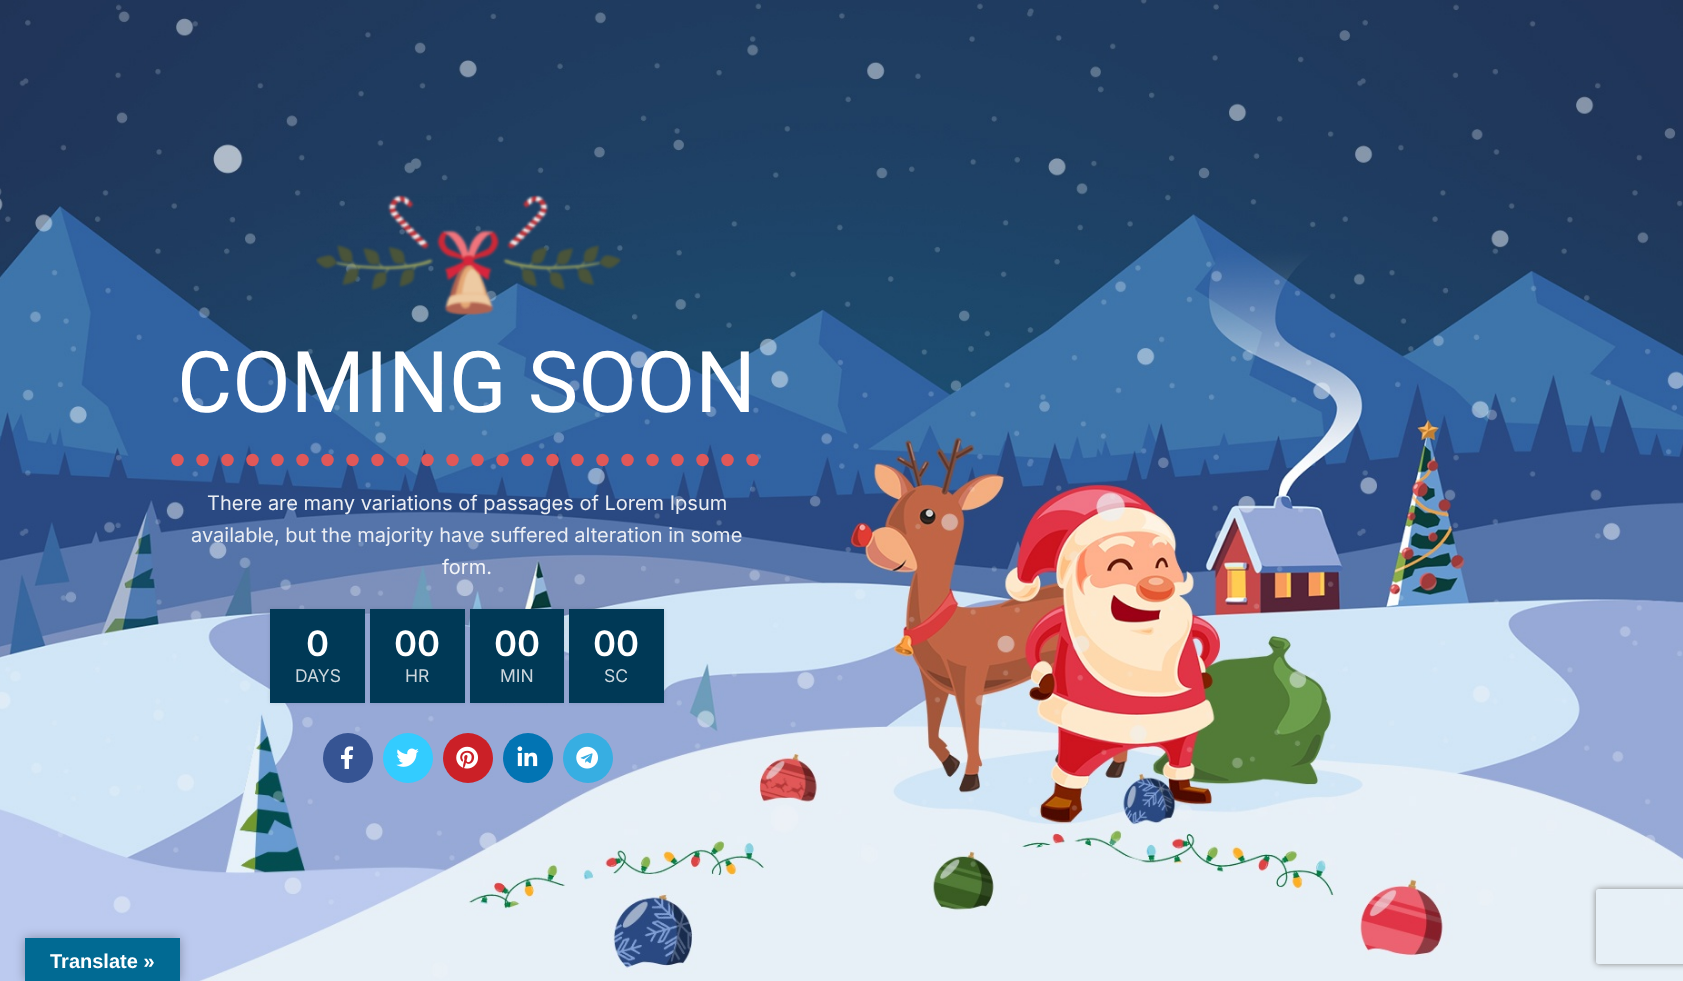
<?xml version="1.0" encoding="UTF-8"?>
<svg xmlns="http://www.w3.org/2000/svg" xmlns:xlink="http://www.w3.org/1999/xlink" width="1683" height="981">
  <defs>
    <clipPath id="clip1"><path d="M 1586 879 h 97 v 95 h -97 z m 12.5 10 h 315 c 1.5 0 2.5 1 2.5 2.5 v 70 c 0 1.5 -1 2.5 -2.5 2.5 h -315 c -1.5 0 -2.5 -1 -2.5 -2.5 v -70 c 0 -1.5 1 -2.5 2.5 -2.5 z" clip-rule="evenodd" /></clipPath>
  </defs>
  <rect width="100%" height="100%" fill="#ffffff" />
  <image x="0" y="0" width="1683" height="981" xlink:href="image1.png" />
  <image x="316" y="194" width="306" height="122" xlink:href="image2.png" />
  <path d="M 177.5 460 h 580" fill="none" stroke="#e05858" stroke-width="12.5" stroke-linecap="round" stroke-dasharray="0 25" />
  <rect x="270" y="609" width="95" height="94" fill="#000000" fill-opacity="0.1" filter="blur(2px)" />
  <rect x="270" y="609" width="95" height="94" fill="#003956" />
  <rect x="370" y="609" width="95" height="94" fill="#000000" fill-opacity="0.1" filter="blur(2px)" />
  <rect x="370" y="609" width="95" height="94" fill="#003956" />
  <rect x="470" y="609" width="94" height="94" fill="#000000" fill-opacity="0.1" filter="blur(2px)" />
  <rect x="470" y="609" width="94" height="94" fill="#003956" />
  <rect x="569" y="609" width="95" height="94" fill="#000000" fill-opacity="0.1" filter="blur(2px)" />
  <rect x="569" y="609" width="95" height="94" fill="#003956" />
  <circle cx="348" cy="758" r="25" fill="#365493" />
  <image x="341" y="746" width="13" height="23" xlink:href="image3.png" />
  <circle cx="408" cy="758" r="25" fill="#33ccff" />
  <image x="396" y="748" width="23" height="19" xlink:href="image4.png" />
  <circle cx="468" cy="758" r="25" fill="#cb2027" />
  <image x="456" y="746" width="22" height="23" xlink:href="image5.png" />
  <circle cx="528" cy="758" r="25" fill="#0274b3" />
  <image x="517" y="746" width="21" height="21" xlink:href="image6.png" />
  <circle cx="588" cy="758" r="25" fill="#37aee2" />
  <image x="576" y="746" width="22" height="23" xlink:href="image7.png" />
  <rect x="25" y="938" width="155" height="43" fill="#000000" fill-opacity="0.3" filter="blur(5.5px)" />
  <rect x="25" y="938" width="155" height="43" fill="#016a93" />
  <g clip-path="url(#clip1)">
    <rect x="1596" y="889" width="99" height="75" rx="2.5" fill="#808080" filter="blur(3px)" />
  </g>
  <text x="177" y="412" style="font-family: Roboto; font-size: 85px; fill: #ffffff">COMING SOON</text>
  <text x="207" y="510" style="font-family: Inter; font-size: 20px; fill: #eaedf3">There are many variations of passages of Lorem Ipsum</text>
  <text x="191" y="542" style="font-family: Inter; font-size: 20px; fill: #eaedf3">available, but the majority have suffered alteration in some</text>
  <text x="442" y="574" style="font-family: Inter; font-size: 20px; fill: #f2f4f8">form.</text>
  <text x="306" y="656" style="font-family: Inter; font-size: 35px; font-weight: 600; fill: #ffffff">0</text>
  <text x="295" y="682" style="font-family: Inter; font-size: 17.5px; fill: #ccd7dd">DAYS</text>
  <text x="394" y="656" style="font-family: Inter; font-size: 35px; font-weight: 600; fill: #ffffff">00</text>
  <text x="405" y="682" style="font-family: Inter; font-size: 17.5px; fill: #ccd7dd">HR</text>
  <text x="494" y="656" style="font-family: Inter; font-size: 35px; font-weight: 600; fill: #ffffff">00</text>
  <text x="500" y="682" style="font-family: Inter; font-size: 17.5px; fill: #ccd7dd">MIN</text>
  <text x="593" y="656" style="font-family: Inter; font-size: 35px; font-weight: 600; fill: #ffffff">00</text>
  <text x="604" y="682" style="font-family: Inter; font-size: 17.5px; fill: #ccd7dd">SC</text>
  <text x="50" y="968" style="font-family: Liberation Sans; font-size: 20px; font-weight: bold; fill: #ffffff">Translate »</text>
</svg>
